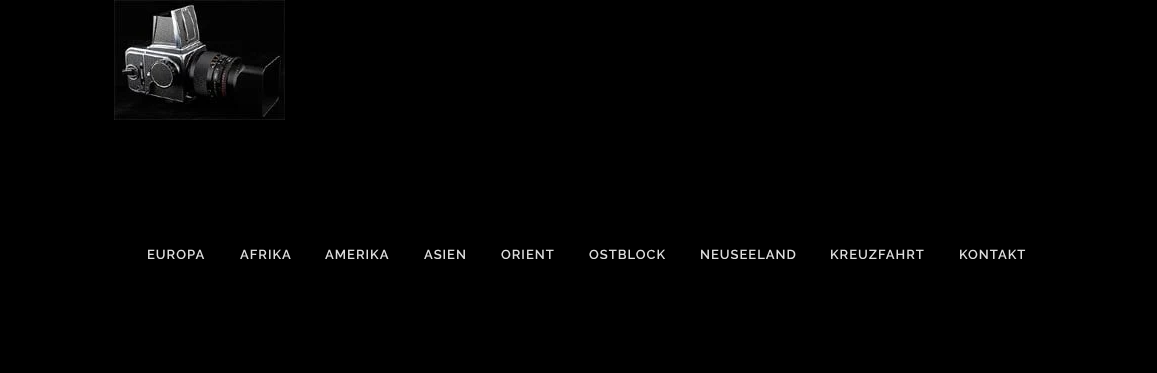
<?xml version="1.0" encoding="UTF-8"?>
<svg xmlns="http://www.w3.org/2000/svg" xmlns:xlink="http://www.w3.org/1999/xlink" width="1157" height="373">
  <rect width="100%" height="100%" fill="#000000" />
  <image x="114" y="0" width="171" height="120" xlink:href="image1.png" />
  <text x="147" y="259" style="font-family: Raleway; font-size: 13px; font-weight: 600; letter-spacing: 1px; fill: #dddddd">EUROPA</text>
  <text x="240" y="259" style="font-family: Raleway; font-size: 13px; font-weight: 600; letter-spacing: 1px; fill: #dddddd">AFRIKA</text>
  <text x="325" y="259" style="font-family: Raleway; font-size: 13px; font-weight: 600; letter-spacing: 1px; fill: #dddddd">AMERIKA</text>
  <text x="424" y="259" style="font-family: Raleway; font-size: 13px; font-weight: 600; letter-spacing: 1px; fill: #dddddd">ASIEN</text>
  <text x="501" y="259" style="font-family: Raleway; font-size: 13px; font-weight: 600; letter-spacing: 1px; fill: #dddddd">ORIENT</text>
  <text x="589" y="259" style="font-family: Raleway; font-size: 13px; font-weight: 600; letter-spacing: 1px; fill: #dddddd">OSTBLOCK</text>
  <text x="700" y="259" style="font-family: Raleway; font-size: 13px; font-weight: 600; letter-spacing: 1px; fill: #dddddd">NEUSEELAND</text>
  <text x="830" y="259" style="font-family: Raleway; font-size: 13px; font-weight: 600; letter-spacing: 1px; fill: #dddddd">KREUZFAHRT</text>
  <text x="959" y="259" style="font-family: Raleway; font-size: 13px; font-weight: 600; letter-spacing: 1px; fill: #dddddd">KONTAKT</text>
</svg>
